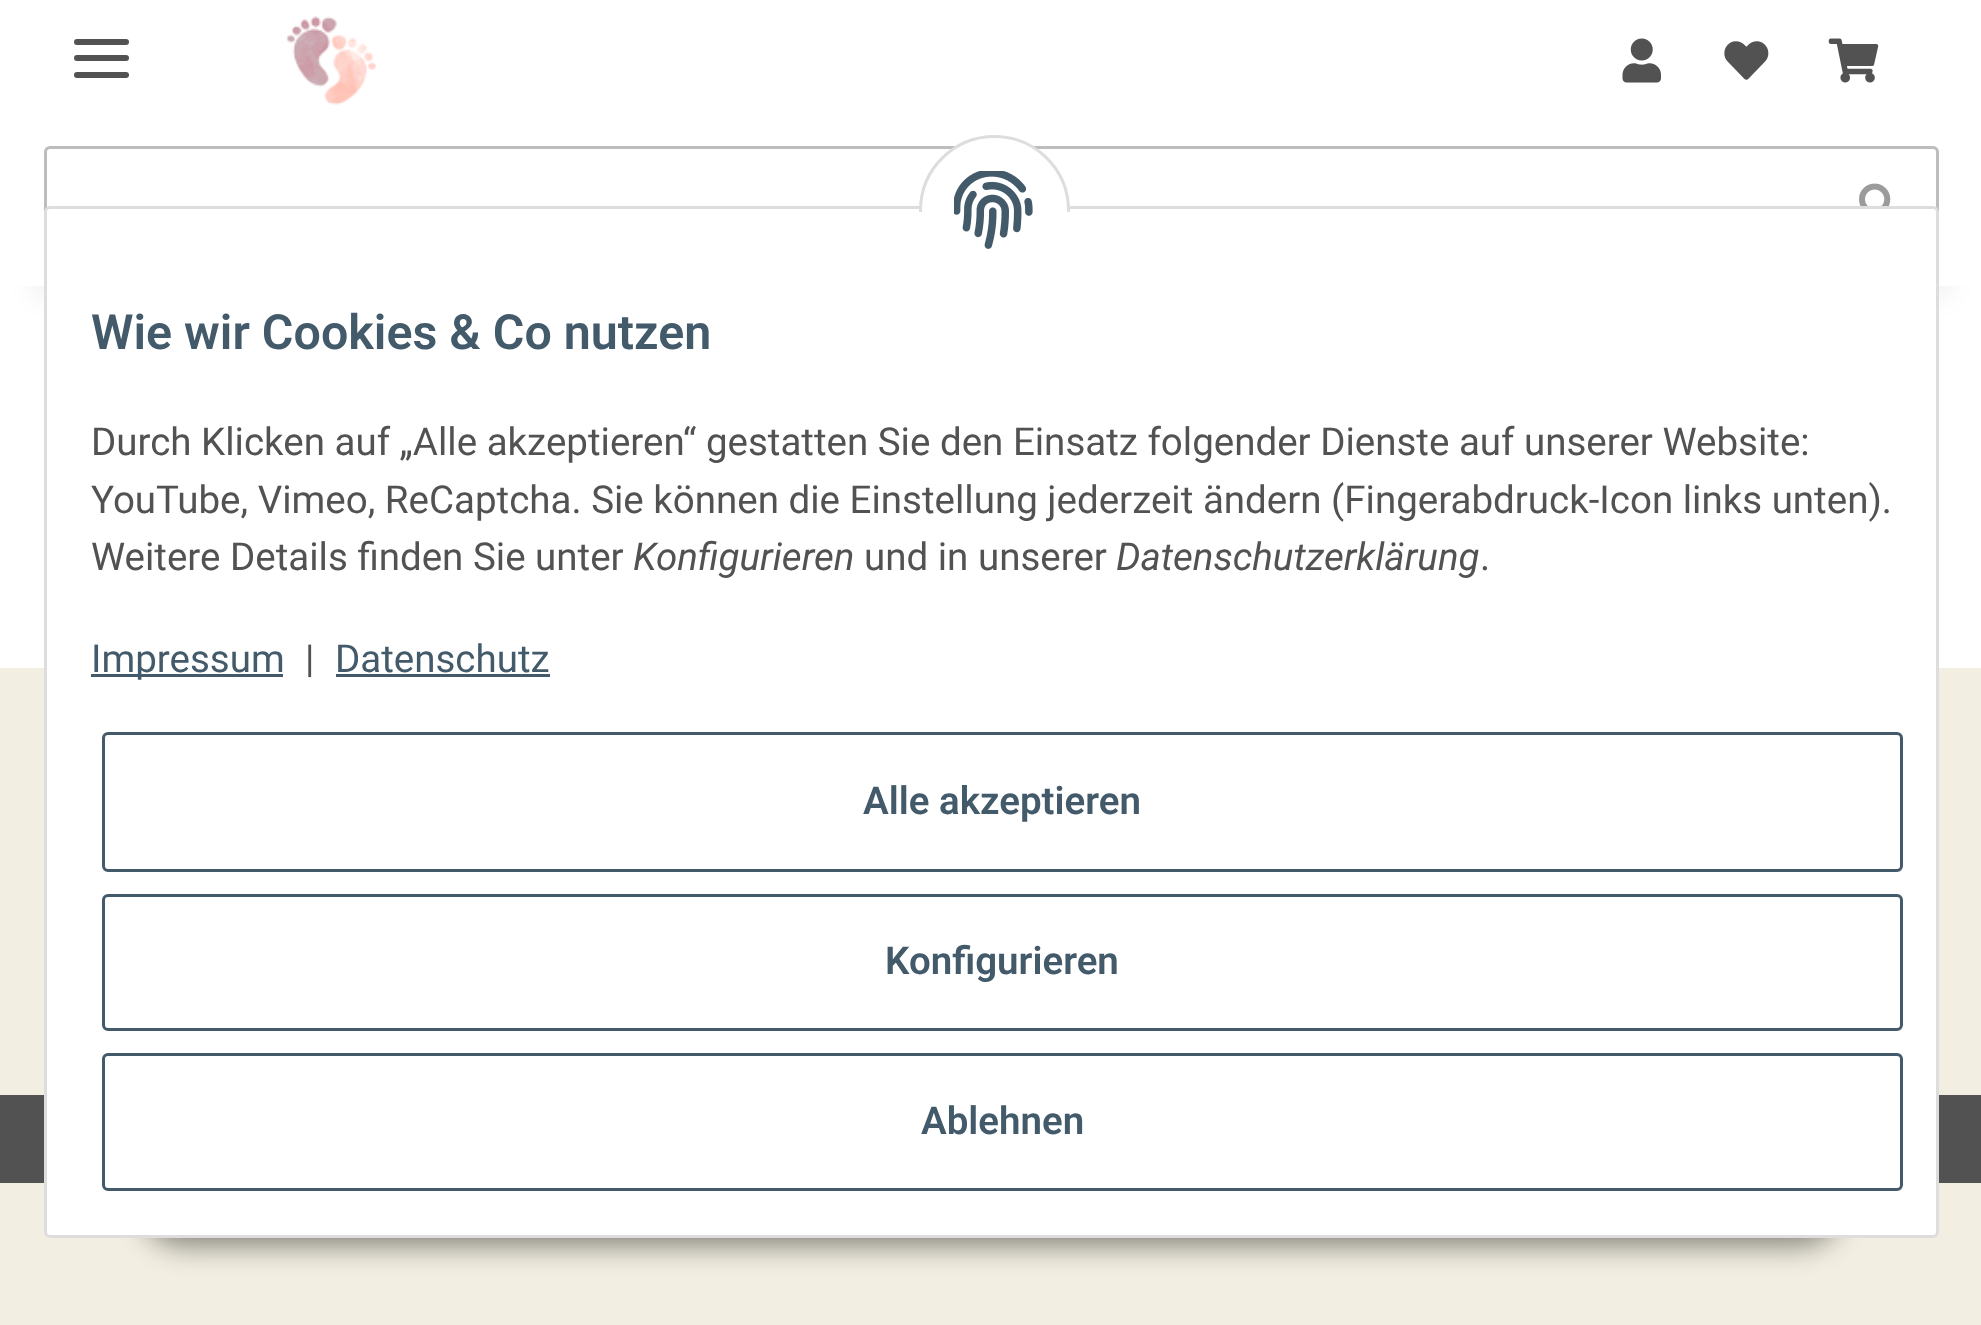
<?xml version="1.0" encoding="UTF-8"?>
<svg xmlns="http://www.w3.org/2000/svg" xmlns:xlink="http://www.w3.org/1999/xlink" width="1981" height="1325">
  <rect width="100%" height="100%" fill="#f2eee1" />
  <rect y="286" width="1981" height="382" fill="#ffffff" />
  <rect x="33" y="77" width="1917" height="220" fill="#000000" fill-opacity="0.06" filter="blur(12.5px)" />
  <rect width="1981" height="286" fill="#ffffff" />
  <rect x="74" y="55" width="55" height="6" rx="3" fill="#525252" />
  <rect x="74" y="39" width="55" height="6" rx="3" fill="#525252" />
  <rect x="74" y="72" width="55" height="6" rx="3" fill="#525252" />
  <image x="285" y="16" width="92" height="89" xlink:href="image1.png" />
  <image x="1622" y="38" width="39" height="45" xlink:href="image2.png" />
  <image x="1724" y="41" width="45" height="39" xlink:href="image3.png" />
  <image x="1828" y="38" width="51" height="45" xlink:href="image4.png" />
  <rect x="45.5" y="147.5" width="1892" height="115" rx="4.5" fill="none" stroke="#bdbdbd" stroke-width="3" />
  <image x="1859" y="183" width="32" height="23" xlink:href="image5.png" />
  <rect y="1095" width="1981" height="88" fill="#525252" />
  <rect x="140" y="1158" width="1703" height="88" rx="44" fill="#000000" fill-opacity="0.45" filter="blur(14px)" />
  <rect x="45.5" y="207.5" width="1892" height="1029" rx="4.5" fill="#ffffff" stroke="#dddddd" stroke-width="3" />
  <circle cx="994.5" cy="210.5" r="74" fill="#ffffff" stroke="#dddddd" stroke-width="3" />
  <rect x="919" y="212" width="151" height="74" fill="#ffffff" />
  <image x="954" y="171" width="79" height="78" xlink:href="image6.png" />
  <rect x="91" y="674" width="192" height="3" fill="#435a6b" />
  <rect x="336" y="674" width="214" height="3" fill="#435a6b" />
  <rect x="103.5" y="733.5" width="1798" height="137" rx="4.5" fill="none" stroke="#435a6b" stroke-width="3" />
  <rect x="103.5" y="895.5" width="1798" height="134" rx="4.5" fill="none" stroke="#435a6b" stroke-width="3" />
  <rect x="103.5" y="1054.5" width="1798" height="135" rx="4.5" fill="none" stroke="#435a6b" stroke-width="3" />
  <text x="91" y="349" style="font-family: Roboto; font-size: 48.4px; font-weight: 600; fill: #435a6b">Wie wir Cookies &amp; Co nutzen</text>
  <text x="91" y="455" style="font-family: Roboto; font-size: 38.5px; fill: #525252">Durch Klicken auf „Alle akzeptieren“ gestatten Sie den Einsatz folgender Dienste auf unserer Website:</text>
  <text x="91" y="513" style="font-family: Roboto; font-size: 38.5px; fill: #525252">YouTube, Vimeo, ReCaptcha. Sie können die Einstellung jederzeit ändern (Fingerabdruck-Icon links unten).</text>
  <text x="91" y="570" style="font-family: Roboto; font-size: 38.5px; fill: #525252">Weitere Details finden Sie unter</text>
  <text x="633" y="570" style="font-family: Roboto; font-size: 38.5px; font-style: italic; fill: #525252">Konfigurieren</text>
  <text x="864" y="570" style="font-family: Roboto; font-size: 38.5px; fill: #525252">und in unserer</text>
  <text x="1116" y="570" style="font-family: Roboto; font-size: 38.5px; font-style: italic; fill: #525252">Datenschutzerklärung</text>
  <text x="1480" y="570" style="font-family: Roboto; font-size: 38.5px; fill: #525252">.</text>
  <text x="91" y="672" style="font-family: Roboto; font-size: 38.5px; fill: #435a6b">Impressum</text>
  <text x="305" y="672" style="font-family: Roboto; font-size: 38.5px; fill: #525252">|</text>
  <text x="335" y="672" style="font-family: Roboto; font-size: 38.5px; fill: #435a6b">Datenschutz</text>
  <text x="863" y="814" style="font-family: Roboto; font-size: 38.5px; font-weight: 600; fill: #435a6b">Alle akzeptieren</text>
  <text x="885" y="974" style="font-family: Roboto; font-size: 38.5px; font-weight: 600; fill: #435a6b">Konfigurieren</text>
  <text x="921" y="1134" style="font-family: Roboto; font-size: 38.5px; font-weight: 600; fill: #435a6b">Ablehnen</text>
</svg>
